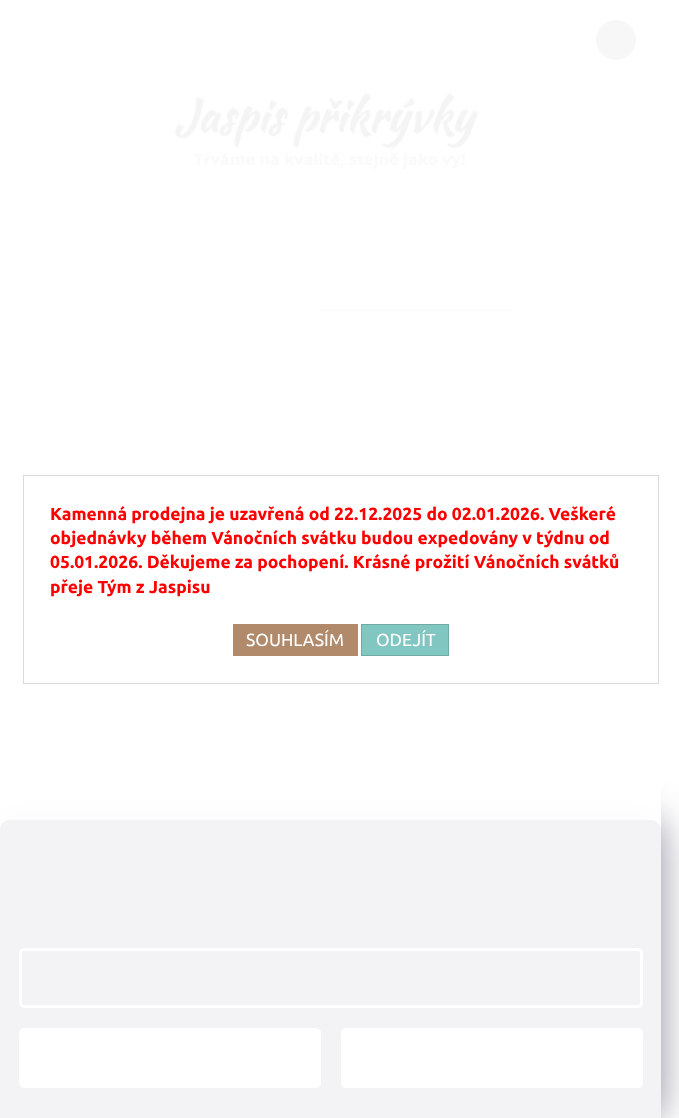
<?xml version="1.0" encoding="UTF-8"?>
<svg xmlns="http://www.w3.org/2000/svg" xmlns:xlink="http://www.w3.org/1999/xlink" width="679" height="1118">
  <rect width="100%" height="100%" fill="#ffffff" />
  <circle cx="616" cy="40" r="20" fill="#666666" />
  <image x="174" y="92" width="305" height="78" xlink:href="image1.png" />
  <rect x="320" y="310" width="191" height="1" fill="#b08a6b" />
  <rect y="363" width="661" height="1" fill="#dadada" />
  <rect y="820" width="661" height="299" rx="10" fill="#1b1939" fill-opacity="0.5" filter="blur(19px)" />
  <path d="M 10 820 h 641 c 5.5 0 10 4.5 10 10 v 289 h -661 v -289 c 0 -5.5 4.5 -10 10 -10 z" fill="#1a1937" />
  <rect x="20.5" y="949.5" width="621" height="57" rx="3.5" fill="none" stroke="#f8fafb" stroke-width="3" />
  <rect x="19" y="1028" width="302" height="60" rx="5" fill="#f8fafb" />
  <rect x="341" y="1028" width="302" height="60" rx="5" fill="#f8fafb" />
  <rect y="20" width="661" height="1098" fill="#ffffff" fill-opacity="0.95" />
  <rect x="23.5" y="475.5" width="635" height="208" fill="none" stroke="#dadada" />
  <rect x="233" y="624" width="125" height="32" fill="#b08a6b" />
  <rect x="361.5" y="624.5" width="87" height="31" fill="#81c6c1" stroke="#71a9a5" />
  <text x="50" y="520" style="font-family: Ubuntu; font-size: 17.5px; font-weight: bold; fill: #ff0000">Kamenná prodejna je uzavřená od 22.12.2025 do 02.01.2026. Veškeré</text>
  <text x="50" y="544" style="font-family: Ubuntu; font-size: 17.5px; font-weight: bold; fill: #ff0000">objednávky během Vánočních svátku budou expedovány v týdnu od</text>
  <text x="50" y="568" style="font-family: Ubuntu; font-size: 17.5px; font-weight: bold; fill: #ff0000">05.01.2026. Děkujeme za pochopení. Krásné prožití Vánočních svátků</text>
  <text x="50" y="593" style="font-family: Ubuntu; font-size: 17.5px; font-weight: bold; fill: #ff0000">přeje Tým z Jaspisu</text>
  <text x="246" y="646" style="font-family: Ubuntu; font-size: 17.5px; fill: #ffffff">SOUHLASÍM</text>
  <text x="376" y="646" style="font-family: Ubuntu; font-size: 17.5px; fill: #ffffff">ODEJÍT</text>
</svg>
